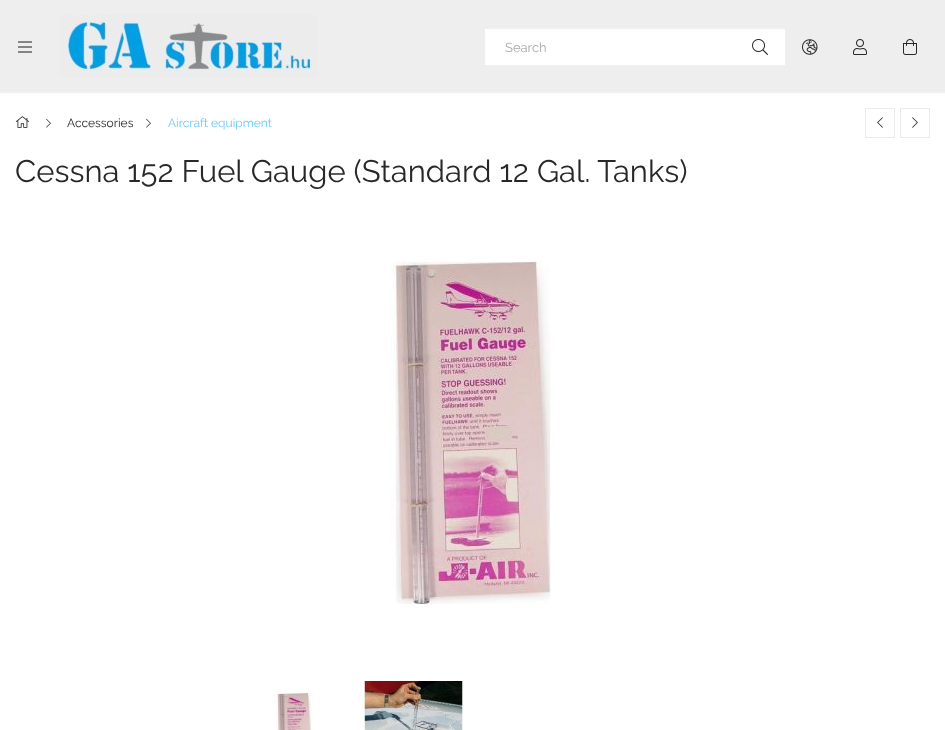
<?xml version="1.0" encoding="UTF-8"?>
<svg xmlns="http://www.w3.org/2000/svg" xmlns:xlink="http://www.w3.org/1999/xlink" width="945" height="730">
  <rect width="100%" height="100%" fill="#ffffff" />
  <rect width="945" height="93" fill="#eeeeee" />
  <image x="18" y="41" width="14" height="12" xlink:href="image1.png" />
  <image x="60" y="15" width="257" height="63" xlink:href="image2.png" />
  <rect x="485" y="29" width="300" height="36" fill="#ffffff" />
  <image x="752" y="39" width="16" height="16" xlink:href="image3.png" />
  <image x="802" y="39" width="16" height="16" xlink:href="image4.png" />
  <image x="853" y="39" width="14" height="16" xlink:href="image5.png" />
  <image x="903" y="39" width="14" height="16" xlink:href="image6.png" />
  <image x="15" y="116" width="14" height="12" xlink:href="image7.png" />
  <image x="46" y="118" width="5" height="10" xlink:href="image8.png" />
  <image x="146" y="118" width="5" height="10" xlink:href="image8.png" />
  <rect x="865.5" y="108.5" width="29" height="29" fill="none" stroke="#eaeaea" />
  <image x="877" y="117" width="6" height="11" xlink:href="image9.png" />
  <rect x="900.5" y="108.5" width="29" height="29" fill="none" stroke="#eaeaea" />
  <image x="912" y="117" width="6" height="11" xlink:href="image10.png" />
  <image x="390" y="261" width="161" height="344" xlink:href="image11.png" />
  <image x="274" y="692" width="40" height="38" xlink:href="image12.png" />
  <image x="364" y="681" width="99" height="49" xlink:href="image13.png" />
  <text x="505" y="52" style="font-family: Raleway; font-size: 13px; fill: #aaaaaa">Search</text>
  <text x="67" y="127" style="font-family: Raleway; font-size: 12px; fill: #282828">Accessories</text>
  <text x="168" y="127" style="font-family: Raleway; font-size: 12px; fill: #6dc9f7">Aircraft equipment</text>
  <text x="15" y="182" style="font-family: Raleway; font-size: 31px; fill: #282828">Cessna 152 Fuel Gauge (Standard 12 Gal. Tanks)</text>
</svg>
